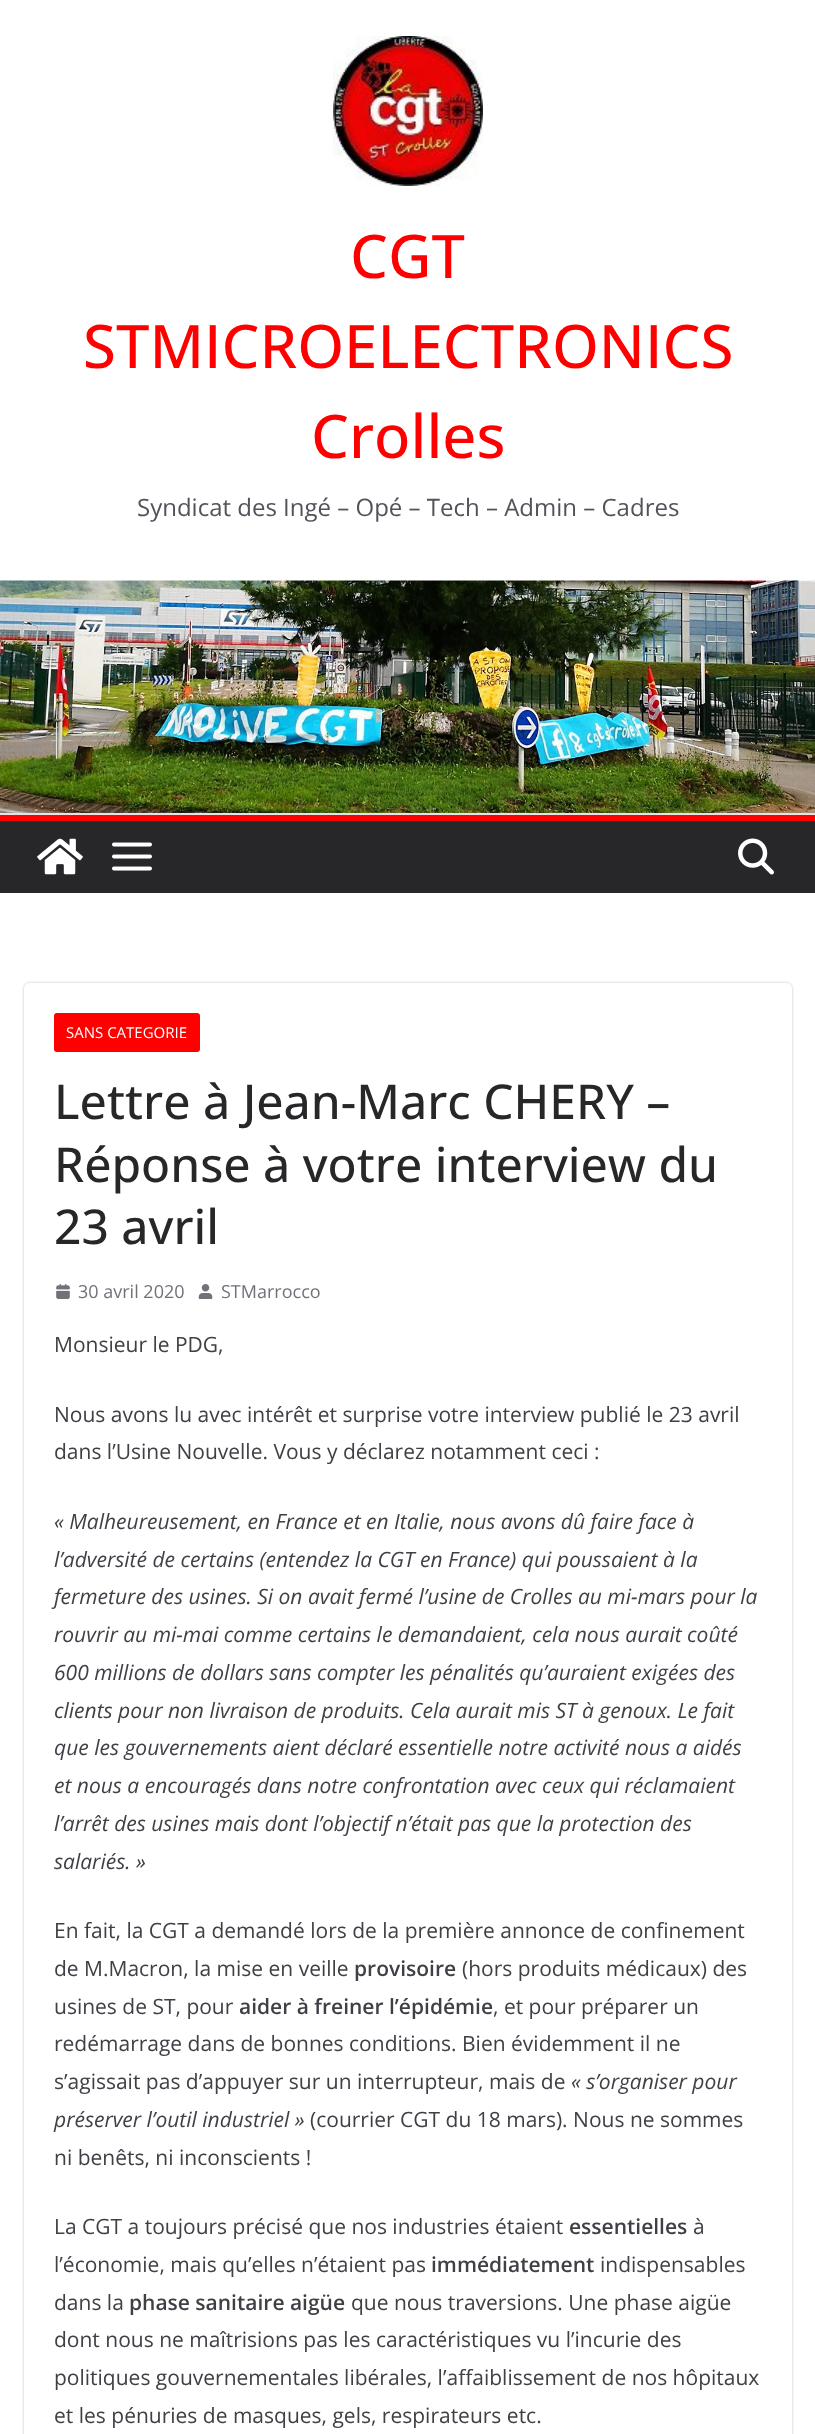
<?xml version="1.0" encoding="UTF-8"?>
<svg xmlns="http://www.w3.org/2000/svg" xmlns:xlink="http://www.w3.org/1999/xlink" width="815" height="2434">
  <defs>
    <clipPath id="clip1"><path d="M 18 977 h 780 v 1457 h -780 z m 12 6 h 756 c 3.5 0 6 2.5 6 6 v 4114 c 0 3.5 -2.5 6 -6 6 h -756 c -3.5 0 -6 -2.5 -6 -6 v -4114 c 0 -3.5 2.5 -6 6 -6 z" clip-rule="evenodd" /></clipPath>
  </defs>
  <rect width="100%" height="100%" fill="#ffffff" />
  <image x="333" y="36" width="150" height="150" xlink:href="image1.png" />
  <image x="0" y="580" width="815" height="233" xlink:href="image2.png" />
  <rect y="813" width="815" height="2" fill="#e4e4e7" />
  <rect y="821" width="815" height="72" fill="#27272a" />
  <rect y="815" width="815" height="6" fill="#ff0000" />
  <image x="37" y="838" width="46" height="37" xlink:href="image3.png" />
  <image x="112" y="842" width="40" height="29" xlink:href="image4.png" />
  <image x="738" y="838" width="36" height="37" xlink:href="image5.png" />
  <g clip-path="url(#clip1)">
    <rect x="24" y="983" width="768" height="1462" rx="6" fill="#000000" fill-opacity="0.24" filter="blur(1.5px)" />
  </g>
  <rect x="54" y="1013" width="146" height="39" rx="3" fill="#ff0000" />
  <image x="56" y="1284" width="14" height="15" xlink:href="image6.png" />
  <image x="198" y="1284" width="15" height="15" xlink:href="image7.png" />
  <text x="350" y="278" style="font-family: Open Sans; font-size: 60px; font-weight: 500; fill: #ff0000">CGT</text>
  <text x="83" y="368" style="font-family: Open Sans; font-size: 60px; font-weight: 500; fill: #ff0000">STMICROELECTRONICS</text>
  <text x="311" y="458" style="font-family: Open Sans; font-size: 60px; font-weight: 500; fill: #ff0000">Crolles</text>
  <text x="137" y="516" style="font-family: Open Sans; font-size: 24px; fill: #52525b">Syndicat des Ingé – Opé – Tech – Admin – Cadres</text>
  <text x="66" y="1038" style="font-family: Open Sans; font-size: 15px; fill: #ffffff">SANS CATEGORIE</text>
  <text x="54" y="1119" style="font-family: Open Sans; font-size: 48px; font-weight: 500; fill: #27272a">Lettre à Jean-Marc CHERY –</text>
  <text x="54" y="1182" style="font-family: Open Sans; font-size: 48px; font-weight: 500; fill: #27272a">Réponse à votre interview du</text>
  <text x="54" y="1244" style="font-family: Open Sans; font-size: 48px; font-weight: 500; fill: #27272a">23 avril</text>
  <text x="78" y="1298" style="font-family: Open Sans; font-size: 18px; fill: #71717a">30 avril 2020</text>
  <text x="221" y="1298" style="font-family: Open Sans; font-size: 18px; fill: #71717a">STMarrocco</text>
  <text x="54" y="1352" style="font-family: Open Sans; font-size: 21px; fill: #3f3f46">Monsieur le PDG,</text>
  <text x="54" y="1422" style="font-family: Open Sans; font-size: 21px; fill: #3f3f46">Nous avons lu avec intérêt et surprise votre interview publié le 23 avril</text>
  <text x="54" y="1459" style="font-family: Open Sans; font-size: 21px; fill: #3f3f46">dans l’Usine Nouvelle. Vous y déclarez notamment ceci :</text>
  <text x="54" y="1529" style="font-family: Open Sans; font-size: 21px; font-style: italic; fill: #3f3f46">« Malheureusement, en France et en Italie, nous avons dû faire face à</text>
  <text x="54" y="1567" style="font-family: Open Sans; font-size: 21px; font-style: italic; fill: #3f3f46">l’adversité de certains (entendez la CGT en France) qui poussaient à la</text>
  <text x="54" y="1604" style="font-family: Open Sans; font-size: 21px; font-style: italic; fill: #3f3f46">fermeture des usines. Si on avait fermé l’usine de Crolles au mi-mars pour la</text>
  <text x="54" y="1642" style="font-family: Open Sans; font-size: 21px; font-style: italic; fill: #3f3f46">rouvrir au mi-mai comme certains le demandaient, cela nous aurait coûté</text>
  <text x="54" y="1680" style="font-family: Open Sans; font-size: 21px; font-style: italic; fill: #3f3f46">600 millions de dollars sans compter les pénalités qu’auraient exigées des</text>
  <text x="54" y="1718" style="font-family: Open Sans; font-size: 21px; font-style: italic; fill: #3f3f46">clients pour non livraison de produits. Cela aurait mis ST à genoux. Le fait</text>
  <text x="54" y="1755" style="font-family: Open Sans; font-size: 21px; font-style: italic; fill: #3f3f46">que les gouvernements aient déclaré essentielle notre activité nous a aidés</text>
  <text x="54" y="1793" style="font-family: Open Sans; font-size: 21px; font-style: italic; fill: #3f3f46">et nous a encouragés dans notre confrontation avec ceux qui réclamaient</text>
  <text x="54" y="1831" style="font-family: Open Sans; font-size: 21px; font-style: italic; fill: #3f3f46">l’arrêt des usines mais dont l’objectif n’était pas que la protection des</text>
  <text x="54" y="1869" style="font-family: Open Sans; font-size: 21px; font-style: italic; fill: #3f3f46">salariés. »</text>
  <text x="54" y="1938" style="font-family: Open Sans; font-size: 21px; fill: #3f3f46">En fait, la CGT a demandé lors de la première annonce de confinement</text>
  <text x="54" y="1976" style="font-family: Open Sans; font-size: 21px; fill: #3f3f46">de M.Macron, la mise en veille</text>
  <text x="354" y="1976" style="font-family: Open Sans; font-size: 21px; font-weight: 600; fill: #3f3f46">provisoire</text>
  <text x="462" y="1976" style="font-family: Open Sans; font-size: 21px; fill: #3f3f46">(hors produits médicaux) des</text>
  <text x="54" y="2014" style="font-family: Open Sans; font-size: 21px; fill: #3f3f46">usines de ST, pour</text>
  <text x="239" y="2014" style="font-family: Open Sans; font-size: 21px; font-weight: 600; fill: #3f3f46">aider à freiner l’épidémie</text>
  <text x="493" y="2014" style="font-family: Open Sans; font-size: 21px; fill: #3f3f46">, et pour préparer un</text>
  <text x="54" y="2051" style="font-family: Open Sans; font-size: 21px; fill: #3f3f46">redémarrage dans de bonnes conditions. Bien évidemment il ne</text>
  <text x="54" y="2089" style="font-family: Open Sans; font-size: 21px; fill: #3f3f46">s’agissait pas d’appuyer sur un interrupteur, mais de</text>
  <text x="571" y="2089" style="font-family: Open Sans; font-size: 21px; font-style: italic; fill: #3f3f46">« s’organiser pour</text>
  <text x="54" y="2127" style="font-family: Open Sans; font-size: 21px; font-style: italic; fill: #3f3f46">préserver l’outil industriel »</text>
  <text x="310" y="2127" style="font-family: Open Sans; font-size: 21px; fill: #3f3f46">(courrier CGT du 18 mars). Nous ne sommes</text>
  <text x="54" y="2165" style="font-family: Open Sans; font-size: 21px; fill: #3f3f46">ni benêts, ni inconscients !</text>
  <text x="54" y="2234" style="font-family: Open Sans; font-size: 21px; fill: #3f3f46">La CGT a toujours précisé que nos industries étaient</text>
  <text x="569" y="2234" style="font-family: Open Sans; font-size: 21px; font-weight: 600; fill: #3f3f46">essentielles</text>
  <text x="693" y="2234" style="font-family: Open Sans; font-size: 21px; fill: #3f3f46">à</text>
  <text x="54" y="2272" style="font-family: Open Sans; font-size: 21px; fill: #3f3f46">l’économie, mais qu’elles n’étaient pas</text>
  <text x="431" y="2272" style="font-family: Open Sans; font-size: 21px; font-weight: 600; fill: #3f3f46">immédiatement</text>
  <text x="600" y="2272" style="font-family: Open Sans; font-size: 21px; fill: #3f3f46">indispensables</text>
  <text x="54" y="2310" style="font-family: Open Sans; font-size: 21px; fill: #3f3f46">dans la</text>
  <text x="129" y="2310" style="font-family: Open Sans; font-size: 21px; font-weight: 600; fill: #3f3f46">phase sanitaire aigüe</text>
  <text x="351" y="2310" style="font-family: Open Sans; font-size: 21px; fill: #3f3f46">que nous traversions. Une phase aigüe</text>
  <text x="54" y="2347" style="font-family: Open Sans; font-size: 21px; fill: #3f3f46">dont nous ne maîtrisions pas les caractéristiques vu l’incurie des</text>
  <text x="54" y="2385" style="font-family: Open Sans; font-size: 21px; fill: #3f3f46">politiques gouvernementales libérales, l’affaiblissement de nos hôpitaux</text>
  <text x="54" y="2423" style="font-family: Open Sans; font-size: 21px; fill: #3f3f46">et les pénuries de masques, gels, respirateurs etc.</text>
</svg>
